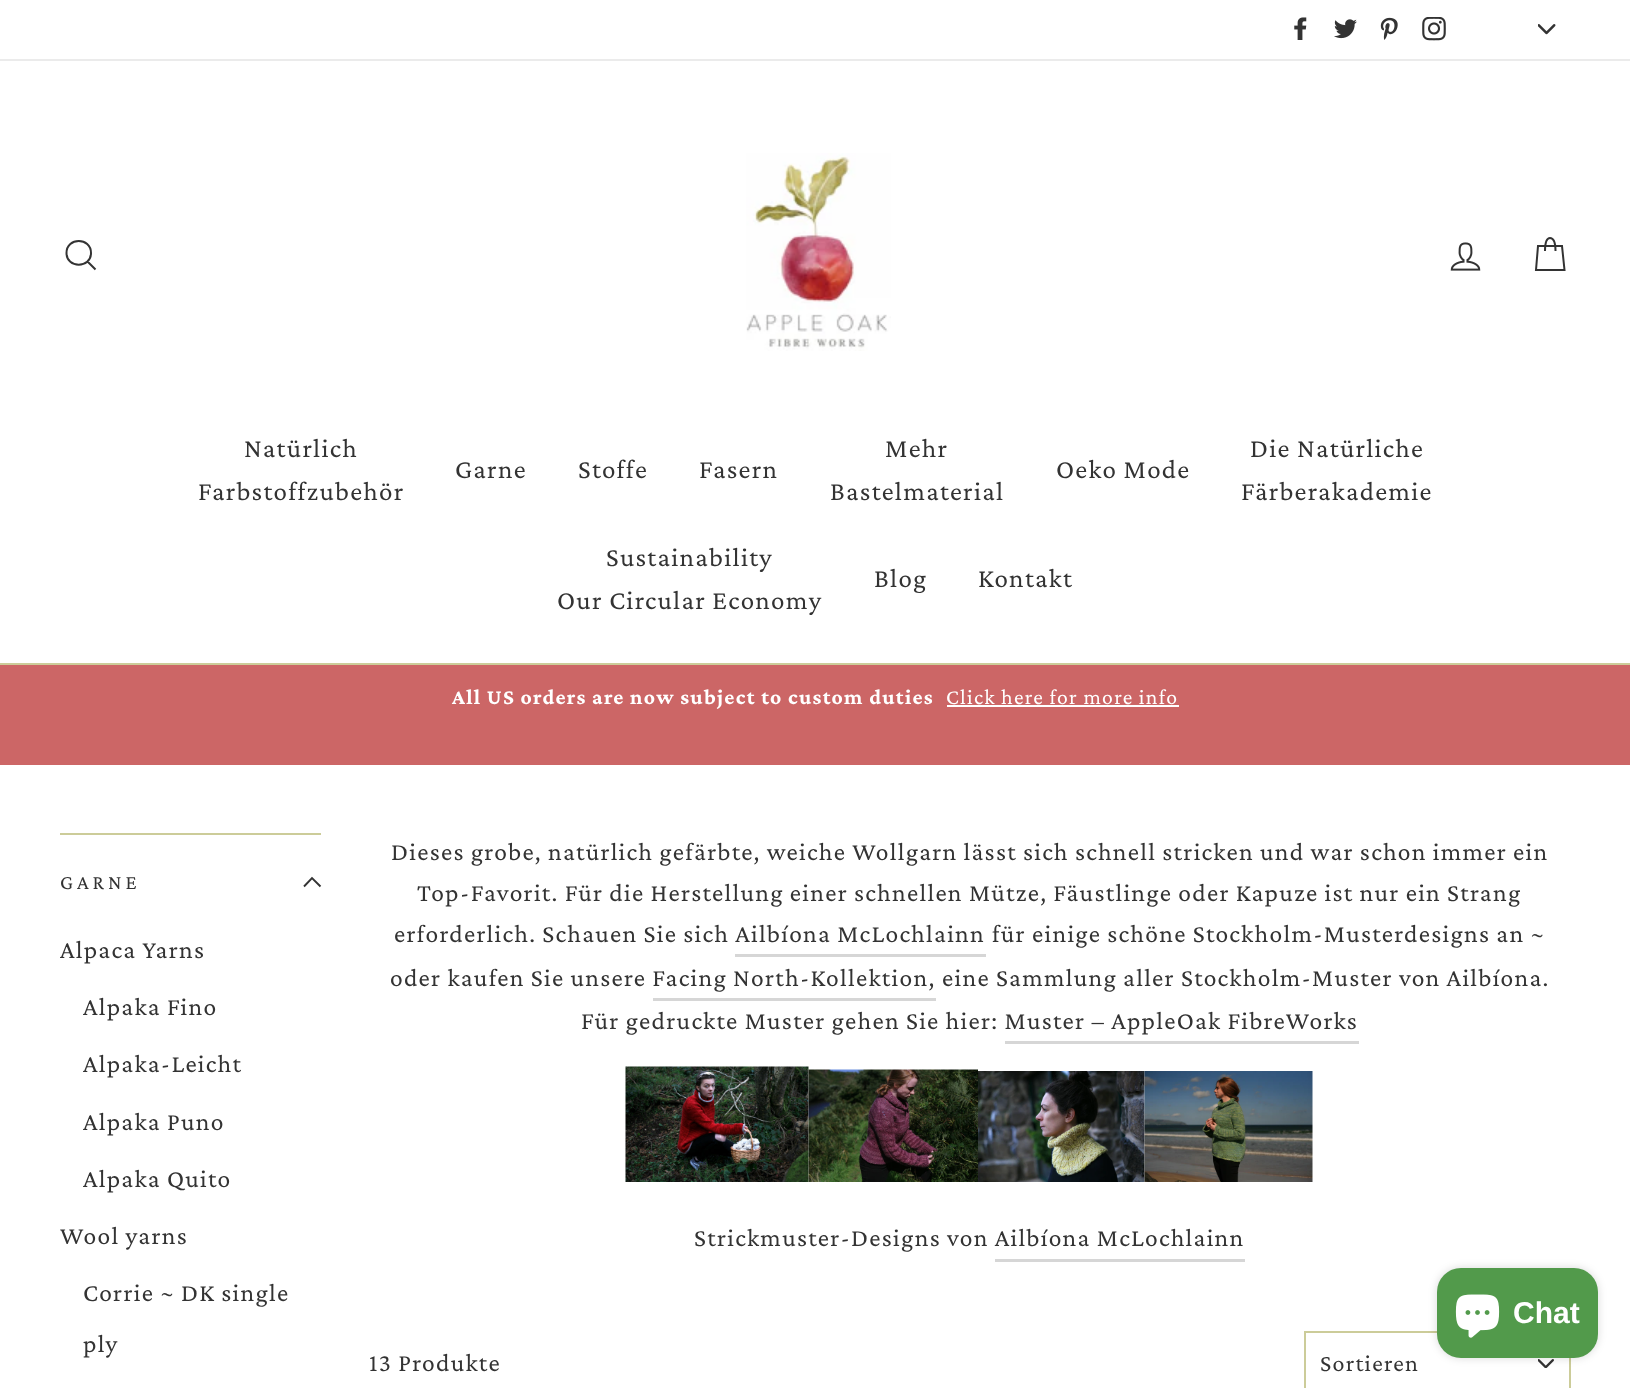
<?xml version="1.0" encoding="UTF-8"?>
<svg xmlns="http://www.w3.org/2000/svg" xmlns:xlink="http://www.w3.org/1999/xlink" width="1630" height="1388">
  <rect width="100%" height="100%" fill="#ffffff" />
  <image x="1294" y="17" width="13" height="23" xlink:href="image1.png" />
  <image x="1334" y="19" width="23" height="20" xlink:href="image2.png" />
  <image x="1380" y="17" width="18" height="23" xlink:href="image3.png" />
  <image x="1422" y="17" width="24" height="24" xlink:href="image4.png" />
  <image x="1538" y="24" width="18" height="11" xlink:href="image5.png" />
  <rect y="59" width="1630" height="2" fill="#ebebeb" />
  <rect y="663" width="1630" height="2" fill="#cccc99" />
  <path d="M 91 253 c 0 15.5 -24.5 15.5 -24.5 0 c 0 -16 24.5 -16 24.5 0 z m 4.5 16.5 l -8 -8" fill="none" stroke="#333333" stroke-width="2" />
  <image x="746" y="153" width="145" height="198" xlink:href="image6.png" />
  <image x="1450" y="242" width="31" height="29" xlink:href="image7.png" />
  <path d="M 1545 251 c 0 -10.5 2 -13 5 -13 c 3 0 5.5 2.5 5.5 13 m -17.5 -5 h 24 l 2.5 24 h -28.5 z" fill="none" stroke="#333333" stroke-width="2" />
  <rect y="665" width="1630" height="100" fill="#cc6666" />
  <rect x="947" y="705" width="232" height="2" fill="#ffffff" />
  <rect x="60" y="833" width="261" height="2" fill="#cccc99" />
  <path d="M 304 886.5 l 8 -8.5 l 8.5 8.5" fill="none" stroke="#333333" stroke-width="1.9" />
  <rect x="735" y="954" width="251" height="3" fill="#d6d6d6" />
  <rect x="653" y="998" width="283" height="3" fill="#d6d6d6" />
  <rect x="1005" y="1041" width="354" height="3" fill="#d6d6d6" />
  <image x="625" y="1066" width="184" height="116" xlink:href="image8.png" />
  <image x="808" y="1069" width="170" height="113" xlink:href="image9.png" />
  <image x="978" y="1071" width="167" height="111" xlink:href="image10.png" />
  <image x="1144" y="1071" width="169" height="111" xlink:href="image11.png" />
  <rect x="995" y="1259" width="250" height="3" fill="#d6d6d6" />
  <image x="1538" y="1359" width="16" height="9" xlink:href="image12.png" />
  <rect x="1305" y="1332" width="265" height="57" fill="none" stroke="#cccc99" stroke-width="2" />
  <rect x="1437" y="1268" width="161" height="90" rx="24" fill="#000000" fill-opacity="0.15" filter="blur(4px)" />
  <rect x="1437" y="1268" width="161" height="90" rx="24" fill="#529a4b" />
  <image x="1455" y="1294" width="45" height="44" xlink:href="image13.png" />
  <text x="244" y="457" style="font-family: Crimson Pro; font-size: 27px; letter-spacing: 1.27px; fill: #333333">Natürlich</text>
  <text x="198" y="500" style="font-family: Crimson Pro; font-size: 27px; letter-spacing: 1.27px; fill: #333333">Farbstoffzubehör</text>
  <text x="455" y="478" style="font-family: Crimson Pro; font-size: 27px; letter-spacing: 1.27px; fill: #333333">Garne</text>
  <text x="578" y="478" style="font-family: Crimson Pro; font-size: 27px; letter-spacing: 1.27px; fill: #333333">Stoffe</text>
  <text x="699" y="478" style="font-family: Crimson Pro; font-size: 27px; letter-spacing: 1.27px; fill: #333333">Fasern</text>
  <text x="885" y="457" style="font-family: Crimson Pro; font-size: 27px; letter-spacing: 1.27px; fill: #333333">Mehr</text>
  <text x="830" y="500" style="font-family: Crimson Pro; font-size: 27px; letter-spacing: 1.27px; fill: #333333">Bastelmaterial</text>
  <text x="1056" y="478" style="font-family: Crimson Pro; font-size: 27px; letter-spacing: 1.27px; fill: #333333">Oeko Mode</text>
  <text x="1250" y="457" style="font-family: Crimson Pro; font-size: 27px; letter-spacing: 1.27px; fill: #333333">Die Natürliche</text>
  <text x="1241" y="500" style="font-family: Crimson Pro; font-size: 27px; letter-spacing: 1.27px; fill: #333333">Färberakademie</text>
  <text x="606" y="566" style="font-family: Crimson Pro; font-size: 27px; letter-spacing: 1.27px; fill: #333333">Sustainability</text>
  <text x="557" y="609" style="font-family: Crimson Pro; font-size: 27px; letter-spacing: 1.27px; fill: #333333">Our Circular Economy</text>
  <text x="874" y="587" style="font-family: Crimson Pro; font-size: 27px; letter-spacing: 1.27px; fill: #333333">Blog</text>
  <text x="978" y="587" style="font-family: Crimson Pro; font-size: 27px; letter-spacing: 1.27px; fill: #333333">Kontakt</text>
  <text x="452" y="704" style="font-family: Crimson Pro; font-size: 21.7px; font-weight: bold; letter-spacing: 1.27px; fill: #ffffff">All US orders are now subject to custom duties</text>
  <text x="946" y="704" style="font-family: Crimson Pro; font-size: 21.7px; letter-spacing: 1.27px; fill: #ffffff">Click here for more info</text>
  <text x="60" y="889" style="font-family: Crimson Pro; font-size: 20.5px; letter-spacing: 4px; fill: #333333">GARNE</text>
  <text x="60" y="958" style="font-family: Crimson Pro; font-size: 25.5px; letter-spacing: 1.27px; fill: #333333">Alpaca Yarns</text>
  <text x="83" y="1015" style="font-family: Crimson Pro; font-size: 25.5px; letter-spacing: 1.27px; fill: #333333">Alpaka Fino</text>
  <text x="83" y="1072" style="font-family: Crimson Pro; font-size: 25.5px; letter-spacing: 1.27px; fill: #333333">Alpaka-Leicht</text>
  <text x="83" y="1130" style="font-family: Crimson Pro; font-size: 25.5px; letter-spacing: 1.27px; fill: #333333">Alpaka Puno</text>
  <text x="83" y="1187" style="font-family: Crimson Pro; font-size: 25.5px; letter-spacing: 1.27px; fill: #333333">Alpaka Quito</text>
  <text x="60" y="1244" style="font-family: Crimson Pro; font-size: 25.5px; letter-spacing: 1.27px; fill: #333333">Wool yarns</text>
  <text x="83" y="1301" style="font-family: Crimson Pro; font-size: 25.5px; letter-spacing: 1.27px; fill: #333333">Corrie ~ DK single</text>
  <text x="83" y="1352" style="font-family: Crimson Pro; font-size: 25.5px; letter-spacing: 1.27px; fill: #333333">ply</text>
  <text x="391" y="860" style="font-family: Crimson Pro; font-size: 25.5px; letter-spacing: 1.27px; fill: #333333">Dieses grobe, natürlich gefärbte, weiche Wollgarn lässt sich schnell stricken und war schon immer ein</text>
  <text x="417" y="901" style="font-family: Crimson Pro; font-size: 25.5px; letter-spacing: 1.27px; fill: #333333">Top-Favorit. Für die Herstellung einer schnellen Mütze, Fäustlinge oder Kapuze ist nur ein Strang</text>
  <text x="394" y="942" style="font-family: Crimson Pro; font-size: 25.5px; letter-spacing: 1.27px; fill: #333333">erforderlich. Schauen Sie sich Ailbíona McLochlainn</text>
  <text x="992" y="942" style="font-family: Crimson Pro; font-size: 25.5px; letter-spacing: 1.27px; fill: #333333">für einige schöne Stockholm-Musterdesigns an ~</text>
  <text x="390" y="986" style="font-family: Crimson Pro; font-size: 25.5px; letter-spacing: 1.27px; fill: #333333">oder kaufen Sie unsere Facing North-Kollektion,</text>
  <text x="942" y="986" style="font-family: Crimson Pro; font-size: 25.5px; letter-spacing: 1.27px; fill: #333333">eine Sammlung aller Stockholm-Muster von Ailbíona.</text>
  <text x="581" y="1029" style="font-family: Crimson Pro; font-size: 25.5px; letter-spacing: 1.27px; fill: #333333">Für gedruckte Muster gehen Sie hier: Muster – AppleOak FibreWorks</text>
  <text x="694" y="1246" style="font-family: Crimson Pro; font-size: 25.5px; letter-spacing: 1.27px; fill: #333333">Strickmuster-Designs von Ailbíona McLochlainn</text>
  <text x="369" y="1371" style="font-family: Crimson Pro; font-size: 25.5px; letter-spacing: 1.27px; fill: #333333">13 Produkte</text>
  <text x="1320" y="1371" style="font-family: Crimson Pro; font-size: 24px; letter-spacing: 1.25px; fill: #333333">Sortieren</text>
  <text x="1513" y="1323" style="font-family: Liberation Sans; font-size: 30px; font-weight: bold; fill: #ffffff">Chat</text>
</svg>
